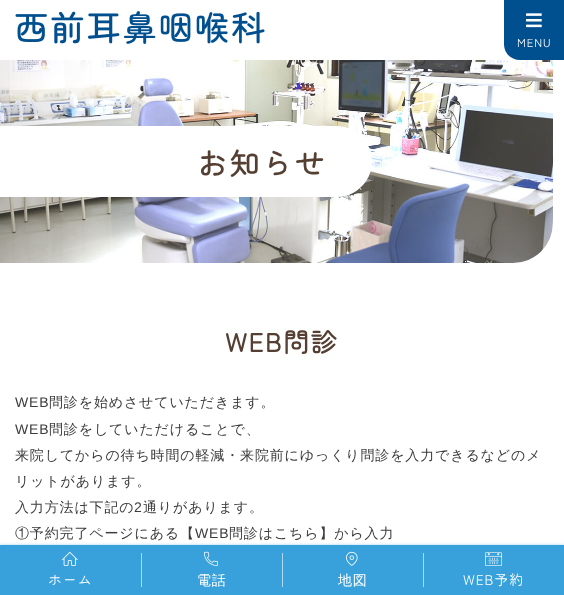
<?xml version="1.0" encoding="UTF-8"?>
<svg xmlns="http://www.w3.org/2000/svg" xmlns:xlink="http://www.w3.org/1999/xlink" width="564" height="595">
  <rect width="100%" height="100%" fill="#ffffff" />
  <path d="M 504 0 h 60 v 60 h -44 c -9 0 -16 -7 -16 -16 z" fill="#004f8e" />
  <image x="526" y="13" width="16" height="15" xlink:href="image1.png" />
  <image x="15" y="11" width="250" height="33" xlink:href="image2.png" />
  <image x="0" y="60" width="553" height="203" xlink:href="image3.png" />
  <path d="M 192 126 h 144.5 c 19.5 0 35.5 16 35.5 35.5 c 0 19.5 -16 35.5 -35.5 35.5 h -144.5 z" fill="#ffffff" />
  <rect y="126" width="192" height="71" fill="#ffffff" />
  <rect y="545" width="564" height="50" fill="#38a1db" fill-opacity="0.5" filter="blur(1.5px)" />
  <rect y="545" width="564" height="50" fill="#38a1db" />
  <image x="62" y="551" width="16" height="15" xlink:href="image4.png" />
  <rect x="141" y="553" width="1" height="34" fill="#afd9f1" />
  <image x="204" y="551" width="14" height="15" xlink:href="image5.png" />
  <rect x="282" y="553" width="1" height="34" fill="#afd9f1" />
  <image x="346" y="551" width="12" height="15" xlink:href="image6.png" />
  <rect x="423" y="553" width="1" height="34" fill="#afd9f1" />
  <image x="485" y="551" width="18" height="15" xlink:href="image7.png" />
  <text x="517" y="47" style="font-family: Zen Maru Gothic; font-size: 11.5px; letter-spacing: 0.85px; fill: #ffffff">MENU</text>
  <text x="197" y="175" style="font-family: Zen Maru Gothic; font-size: 30px; font-weight: bold; letter-spacing: 2.5px; fill: #543f32">お知らせ</text>
  <text x="225" y="352" style="font-family: Zen Maru Gothic; font-size: 26px; font-weight: bold; letter-spacing: 1.5px; fill: #543f32">WEB問診</text>
  <text x="15" y="407" style="font-family: Liberation Sans; font-size: 14px; letter-spacing: 0.85px; fill: #3c3c3c">WEB</text>
  <text x="49" y="407" style="font-family: WenQuanYi Zen Hei; font-size: 14px; font-weight: 500; letter-spacing: 0.85px; fill: #3c3c3c">問診を始めさせていただきます。</text>
  <text x="15" y="434" style="font-family: Liberation Sans; font-size: 14px; letter-spacing: 0.85px; fill: #3c3c3c">WEB</text>
  <text x="49" y="434" style="font-family: WenQuanYi Zen Hei; font-size: 14px; font-weight: 500; letter-spacing: 0.85px; fill: #3c3c3c">問診をしていただけることで、</text>
  <text x="15" y="460" style="font-family: WenQuanYi Zen Hei; font-size: 14px; font-weight: 500; letter-spacing: 0.85px; fill: #3c3c3c">来院してからの待ち時間の軽減・来院前にゆっくり問診を入力できるなどのメ</text>
  <text x="15" y="486" style="font-family: WenQuanYi Zen Hei; font-size: 14px; font-weight: 500; letter-spacing: 0.85px; fill: #3c3c3c">リットがあります。</text>
  <text x="15" y="512" style="font-family: WenQuanYi Zen Hei; font-size: 14px; font-weight: 500; letter-spacing: 0.85px; fill: #3c3c3c">入力方法は下記の</text>
  <text x="134" y="512" style="font-family: Liberation Sans; font-size: 14px; letter-spacing: 0.85px; fill: #3c3c3c">2</text>
  <text x="143" y="512" style="font-family: WenQuanYi Zen Hei; font-size: 14px; font-weight: 500; letter-spacing: 0.85px; fill: #3c3c3c">通りがあります。</text>
  <text x="15" y="538" style="font-family: WenQuanYi Zen Hei; font-size: 14px; font-weight: 500; letter-spacing: 0.85px; fill: #3c3c3c">①予約完了ページにある【</text>
  <text x="195" y="538" style="font-family: Liberation Sans; font-size: 14px; letter-spacing: 0.85px; fill: #3c3c3c">WEB</text>
  <text x="229" y="538" style="font-family: WenQuanYi Zen Hei; font-size: 14px; font-weight: 500; letter-spacing: 0.85px; fill: #3c3c3c">問診はこちら】から入力</text>
  <text x="48" y="585" style="font-family: Zen Maru Gothic; font-size: 14px; letter-spacing: 0.85px; fill: #ffffff">ホーム</text>
  <text x="197" y="585" style="font-family: WenQuanYi Zen Hei; font-size: 14px; font-weight: 500; letter-spacing: 0.85px; fill: #ffffff">電話</text>
  <text x="338" y="585" style="font-family: WenQuanYi Zen Hei; font-size: 14px; font-weight: 500; letter-spacing: 0.85px; fill: #ffffff">地図</text>
  <text x="463" y="585" style="font-family: Zen Maru Gothic; font-size: 14px; letter-spacing: 0.85px; fill: #ffffff">WEB予約</text>
</svg>
